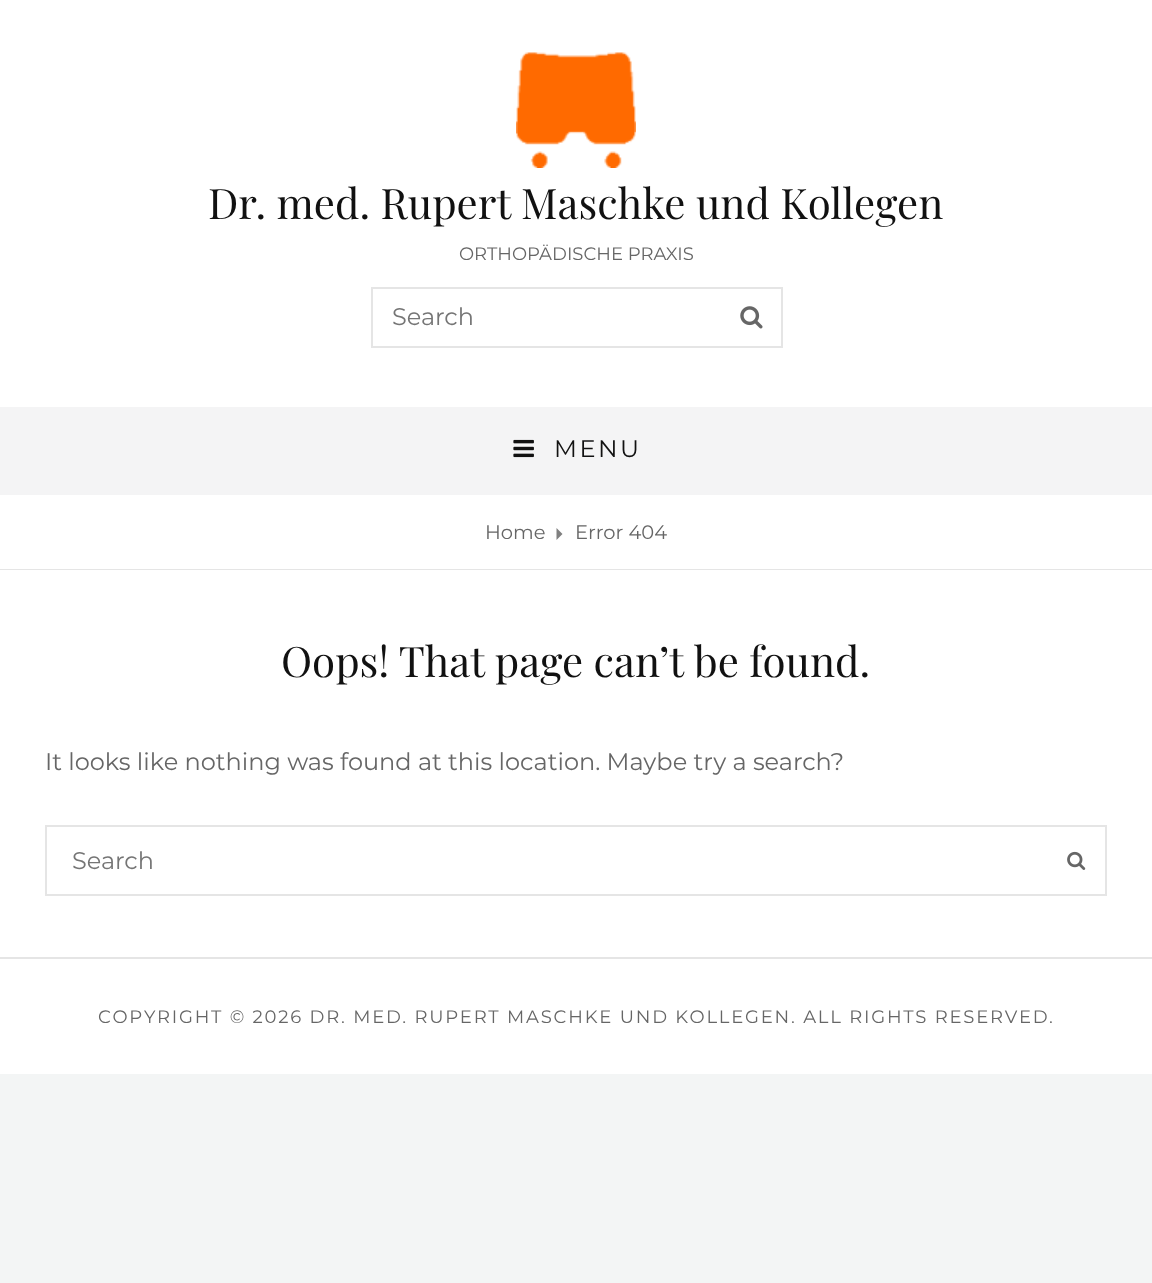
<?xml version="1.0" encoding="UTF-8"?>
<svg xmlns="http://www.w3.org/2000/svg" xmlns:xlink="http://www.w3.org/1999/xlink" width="1152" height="1283">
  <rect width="100%" height="100%" fill="#f3f5f5" />
  <rect width="1152" height="1074" fill="#ffffff" />
  <image x="516" y="52" width="120" height="116" xlink:href="image1.png" />
  <rect x="372" y="288" width="410" height="59" fill="none" stroke="#e5e5e5" stroke-width="2" />
  <image x="740" y="306" width="23" height="23" xlink:href="image2.png" />
  <rect y="407" width="1152" height="88" fill="#f4f4f5" />
  <image x="513" y="439" width="21" height="19" xlink:href="image3.png" />
  <path d="M 556.5 540 v -12 l 6 6 z" fill="#808080" />
  <rect y="569" width="1152" height="1" fill="#e5e5e5" />
  <rect x="46" y="826" width="1060" height="69" fill="none" stroke="#e5e5e5" stroke-width="2" />
  <image x="1067" y="851" width="19" height="19" xlink:href="image4.png" />
  <rect y="957" width="1152" height="2" fill="#e5e5e5" />
  <text x="208" y="219" style="font-family: Playfair Display; font-size: 42px; fill: #111111">Dr. med. Rupert Maschke und Kollegen</text>
  <text x="459" y="260" style="font-family: Montserrat; font-size: 18px; fill: #666666">ORTHOPÄDISCHE PRAXIS</text>
  <text x="392" y="325" style="font-family: Montserrat; font-size: 24px; fill: #757575">Search</text>
  <text x="554" y="457" style="font-family: Montserrat; font-size: 24px; letter-spacing: 2.5px; fill: #111111">MENU</text>
  <text x="485" y="539" style="font-family: Montserrat; font-size: 19.5px; fill: #666666">Home</text>
  <text x="575" y="539" style="font-family: Montserrat; font-size: 19.5px; fill: #666666">Error 404</text>
  <text x="281" y="677" style="font-family: Playfair Display; font-size: 42px; fill: #111111">Oops! That page can’t be found.</text>
  <text x="45" y="770" style="font-family: Montserrat; font-size: 24px; fill: #666666">It looks like nothing was found at this location. Maybe try a search?</text>
  <text x="72" y="869" style="font-family: Montserrat; font-size: 24px; fill: #757575">Search</text>
  <text x="98" y="1023" style="font-family: Montserrat; font-size: 18px; letter-spacing: 1.8px; fill: #666666">COPYRIGHT © 2026 DR. MED. RUPERT MASCHKE UND KOLLEGEN. ALL RIGHTS RESERVED.</text>
</svg>
